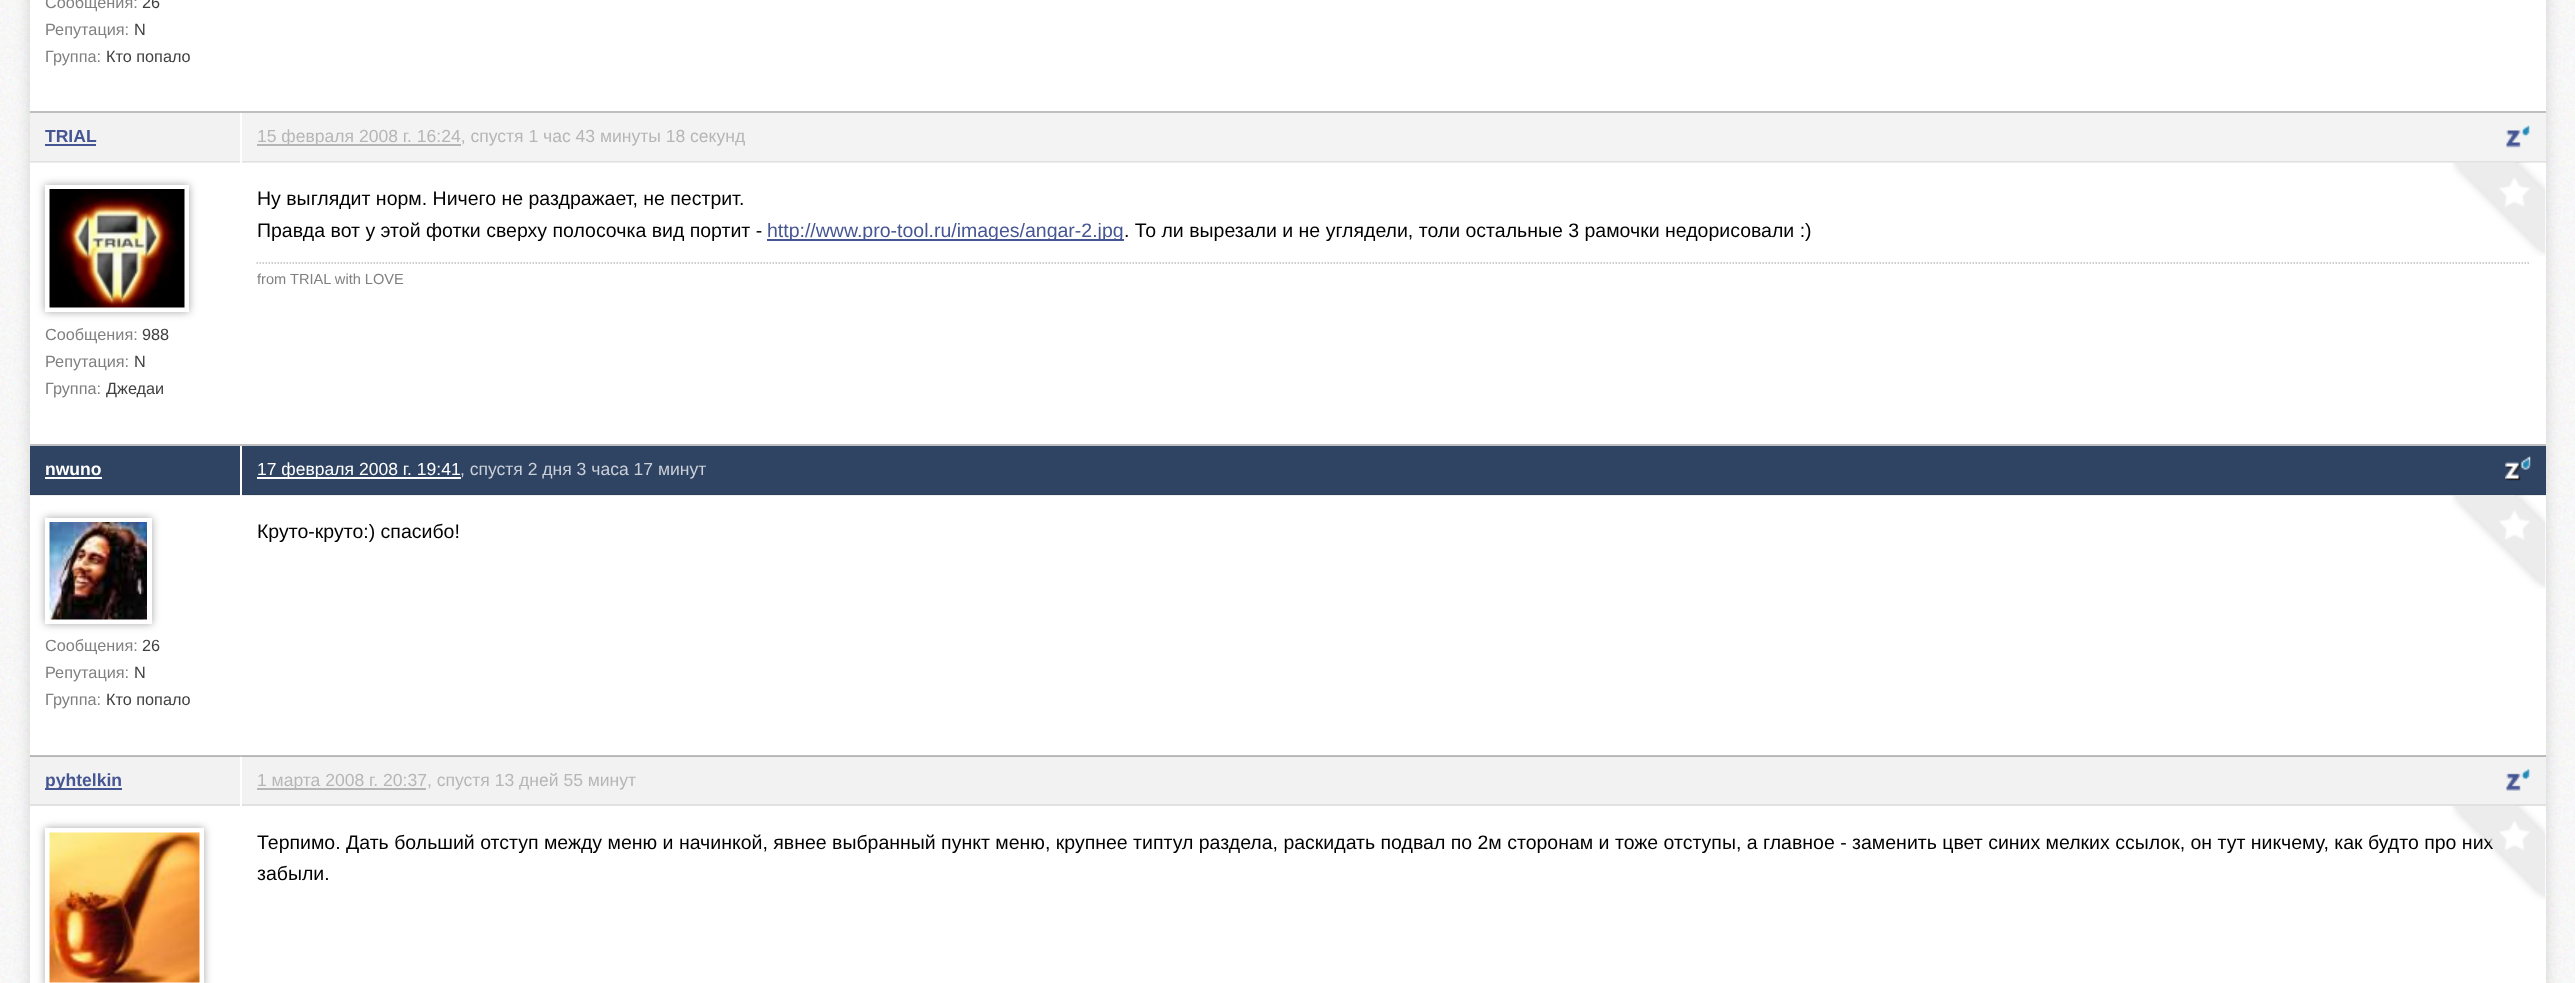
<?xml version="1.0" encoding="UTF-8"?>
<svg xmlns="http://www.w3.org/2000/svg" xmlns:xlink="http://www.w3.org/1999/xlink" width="2575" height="983">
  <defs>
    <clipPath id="clip1"><path d="M 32 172 h 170 v 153 h -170 z m 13 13 h 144 v 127 h -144 z" clip-rule="evenodd" /></clipPath>
    <clipPath id="clip2"><path d="M 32 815 h 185 v 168 h -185 z m 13 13 h 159 v 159 h -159 z" clip-rule="evenodd" /></clipPath>
  </defs>
  <rect width="100%" height="100%" fill="#ffffff" />
  <image x="0" y="0" width="2575" height="983" xlink:href="image1.png" />
  <rect x="30" y="-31" width="2516" height="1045" rx="8" fill="#000000" fill-opacity="0.15" filter="blur(7.5px)" />
  <rect x="30" width="2516" height="983" fill="#ffffff" />
  <rect x="30" y="111" width="2516" height="2" fill="#bfbfbf" />
  <rect x="30" y="113" width="210" height="49" fill="#f2f2f2" />
  <rect x="30" y="161" width="210" height="2" fill="#000000" fill-opacity="0.07" />
  <rect x="45" y="144" width="51" height="2" fill="#465692" />
  <g clip-path="url(#clip1)">
    <rect x="45" y="185" width="144" height="127" fill="#000000" fill-opacity="0.35" filter="blur(4px)" />
  </g>
  <image x="49" y="189" width="136" height="119" xlink:href="image2.png" />
  <rect x="242" y="113" width="2304" height="49" fill="#f3f3f3" />
  <rect x="242" y="161" width="2304" height="2" fill="#000000" fill-opacity="0.07" />
  <rect x="257" y="144" width="204" height="2" fill="#b6b6b6" />
  <image x="2506" y="124" width="25" height="24" xlink:href="image3.png" />
  <rect x="767" y="239" width="357" height="2" fill="#465692" />
  <path d="M 256.5 263 h 2274" fill="none" stroke="#bfbfbf" stroke-width="1.5" stroke-dasharray="1.5 1.5" />
  <image x="2452" y="162" width="94" height="94" xlink:href="image4.png" />
  <rect x="30" y="444" width="2516" height="2" fill="#bfbfbf" />
  <rect x="30" y="446" width="210" height="49" fill="#2f4363" />
  <rect x="30" y="494" width="210" height="2" fill="#000000" fill-opacity="0.07" />
  <rect x="45" y="477" width="57" height="2" fill="#ffffff" />
  <rect x="45" y="518" width="107" height="106" fill="#000000" fill-opacity="0.35" filter="blur(4px)" />
  <rect x="47.5" y="520.5" width="102" height="101" fill="none" stroke="#ffffff" stroke-width="5" />
  <image x="49" y="522" width="98" height="98" xlink:href="image5.png" />
  <rect x="242" y="446" width="2304" height="49" fill="#2f4363" />
  <rect x="242" y="494" width="2304" height="2" fill="#000000" fill-opacity="0.07" />
  <rect x="257" y="477" width="204" height="2" fill="#ffffff" />
  <image x="2505" y="456" width="26" height="25" xlink:href="image6.png" />
  <image x="2452" y="495" width="94" height="94" xlink:href="image4.png" />
  <rect x="30" y="755" width="2516" height="2" fill="#bfbfbf" />
  <rect x="30" y="756" width="210" height="48" fill="#000000" fill-opacity="0.05" />
  <rect x="30" y="804" width="210" height="2" fill="#e1e1e1" />
  <rect x="45" y="788" width="77" height="2" fill="#465692" />
  <g clip-path="url(#clip2)">
    <rect x="45" y="828" width="159" height="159" fill="#000000" fill-opacity="0.35" filter="blur(4px)" />
  </g>
  <image x="49" y="832" width="151" height="151" xlink:href="image7.png" />
  <rect x="242" y="756" width="2304" height="48" fill="#000000" fill-opacity="0.05" />
  <rect x="242" y="804" width="2304" height="2" fill="#e1e1e1" />
  <rect x="257" y="788" width="169" height="2" fill="#b6b6b6" />
  <image x="2506" y="768" width="25" height="23" xlink:href="image8.png" />
  <text x="45" y="8" style="font-family: Liberation Sans; font-size: 16.25px; fill: #808080">Сообщения:</text>
  <text x="142" y="8" style="font-family: Liberation Sans; font-size: 16.25px; fill: #404040">26</text>
  <text x="45" y="35" style="font-family: Liberation Sans; font-size: 16.25px; fill: #808080">Репутация:</text>
  <text x="134" y="35" style="font-family: Liberation Sans; font-size: 16.25px; fill: #404040">N</text>
  <text x="45" y="62" style="font-family: Liberation Sans; font-size: 16.25px; fill: #808080">Группа:</text>
  <text x="106" y="62" style="font-family: Liberation Sans; font-size: 16.25px; fill: #404040">Кто попало</text>
  <text x="45" y="142" style="font-family: Liberation Sans; font-size: 17.55px; font-weight: bold; fill: #465692">TRIAL</text>
  <text x="45" y="340" style="font-family: Liberation Sans; font-size: 16.25px; fill: #808080">Сообщения:</text>
  <text x="142" y="340" style="font-family: Liberation Sans; font-size: 16.25px; fill: #404040">988</text>
  <text x="45" y="367" style="font-family: Liberation Sans; font-size: 16.25px; fill: #808080">Репутация:</text>
  <text x="134" y="367" style="font-family: Liberation Sans; font-size: 16.25px; fill: #404040">N</text>
  <text x="45" y="394" style="font-family: Liberation Sans; font-size: 16.25px; fill: #808080">Группа:</text>
  <text x="106" y="394" style="font-family: Liberation Sans; font-size: 16.25px; fill: #404040">Джедаи</text>
  <text x="257" y="142" style="font-family: Liberation Sans; font-size: 17.55px; fill: #b6b6b6">15 февраля 2008 г. 16:24, спустя 1 час 43 минуты 18 секунд</text>
  <text x="257" y="205" style="font-family: Liberation Sans; font-size: 19.5px; fill: #000000">Ну выглядит норм. Ничего не раздражает, не пестрит.</text>
  <text x="257" y="237" style="font-family: Liberation Sans; font-size: 19.5px; fill: #000000">Правда вот у этой фотки сверху полосочка вид портит -</text>
  <text x="767" y="237" style="font-family: Liberation Sans; font-size: 19.5px; fill: #465692">http://www.pro-tool.ru/images/angar-2.jpg</text>
  <text x="1124" y="237" style="font-family: Liberation Sans; font-size: 19.5px; fill: #000000">. То ли вырезали и не углядели, толи остальные 3 рамочки недорисовали :)</text>
  <text x="257" y="284" style="font-family: Liberation Sans; font-size: 14.6px; fill: #808080">from TRIAL with LOVE</text>
  <text x="45" y="475" style="font-family: Liberation Sans; font-size: 17.55px; font-weight: bold; fill: #ffffff">nwuno</text>
  <text x="45" y="651" style="font-family: Liberation Sans; font-size: 16.25px; fill: #808080">Сообщения:</text>
  <text x="142" y="651" style="font-family: Liberation Sans; font-size: 16.25px; fill: #404040">26</text>
  <text x="45" y="678" style="font-family: Liberation Sans; font-size: 16.25px; fill: #808080">Репутация:</text>
  <text x="134" y="678" style="font-family: Liberation Sans; font-size: 16.25px; fill: #404040">N</text>
  <text x="45" y="705" style="font-family: Liberation Sans; font-size: 16.25px; fill: #808080">Группа:</text>
  <text x="106" y="705" style="font-family: Liberation Sans; font-size: 16.25px; fill: #404040">Кто попало</text>
  <text x="257" y="475" style="font-family: Liberation Sans; font-size: 17.55px; fill: #ffffff">17 февраля 2008 г. 19:41</text>
  <text x="460" y="475" style="font-family: Liberation Sans; font-size: 17.55px; fill: #cbd0d8">, спустя 2 дня 3 часа 17 минут</text>
  <text x="257" y="538" style="font-family: Liberation Sans; font-size: 19.5px; fill: #000000">Круто-круто:) спасибо!</text>
  <text x="45" y="786" style="font-family: Liberation Sans; font-size: 17.55px; font-weight: bold; fill: #465692">pyhtelkin</text>
  <text x="257" y="786" style="font-family: Liberation Sans; font-size: 17.55px; fill: #b6b6b6">1 марта 2008 г. 20:37, спустя 13 дней 55 минут</text>
  <text x="257" y="849" style="font-family: Liberation Sans; font-size: 19.5px; fill: #000000">Терпимо. Дать больший отступ между меню и начинкой, явнее выбранный пункт меню, крупнее типтул раздела, раскидать подвал по 2м сторонам и тоже отступы, а главное - заменить цвет синих мелких ссылок, он тут никчему, как будто про них</text>
  <text x="257" y="880" style="font-family: Liberation Sans; font-size: 19.5px; fill: #000000">забыли.</text>
  <image x="2452" y="805" width="94" height="95" xlink:href="image9.png" />
</svg>
